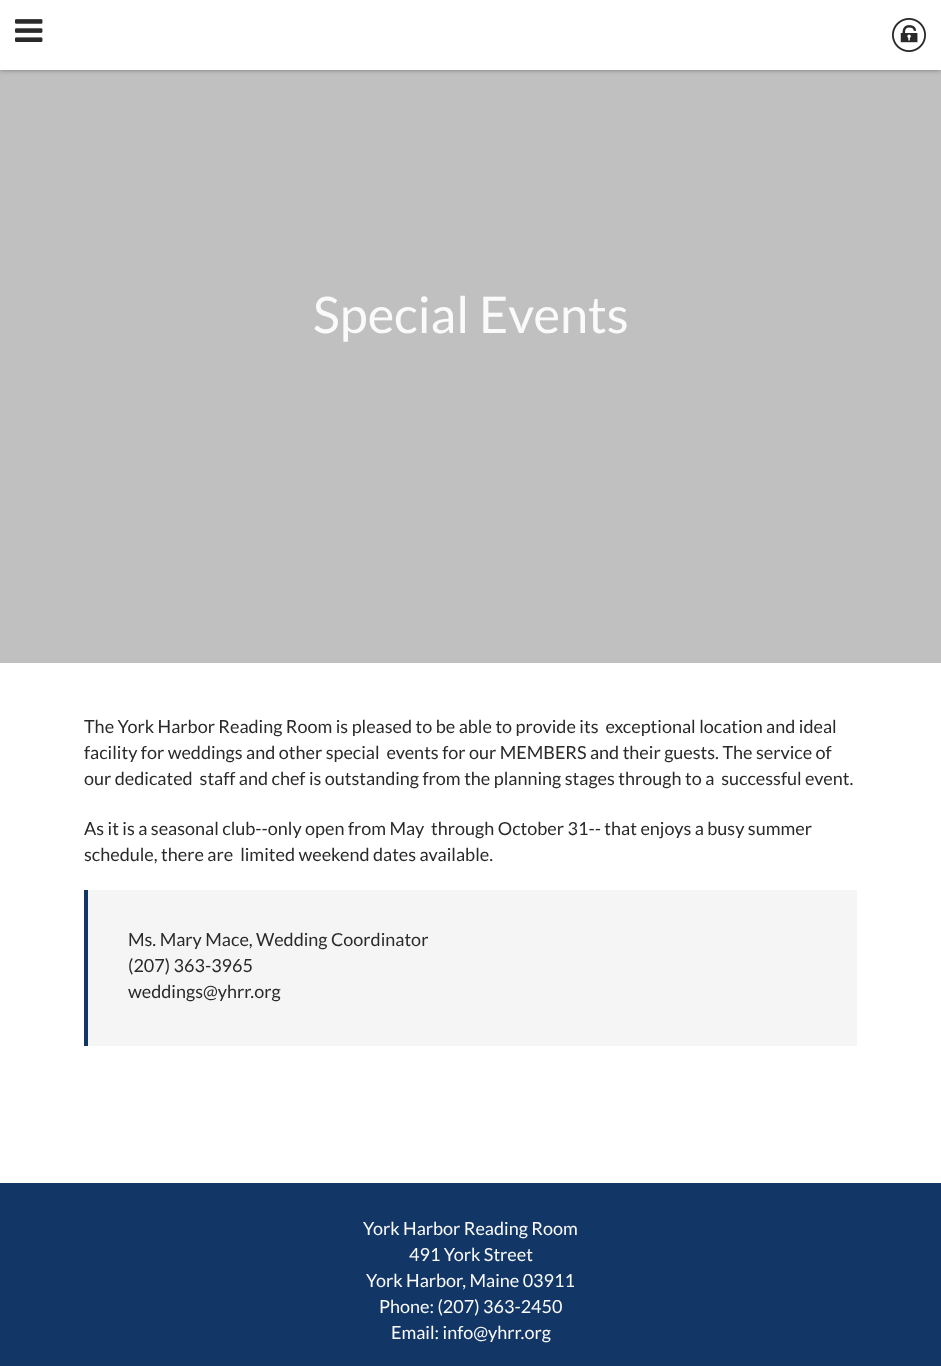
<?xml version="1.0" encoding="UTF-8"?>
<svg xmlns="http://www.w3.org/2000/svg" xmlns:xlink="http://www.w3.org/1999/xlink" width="941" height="1366">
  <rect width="100%" height="100%" fill="#ffffff" />
  <rect y="70" width="941" height="593" fill="#c0c0c0" />
  <rect width="941" height="70" fill="#000000" fill-opacity="0.4" filter="blur(2.5px)" />
  <rect width="941" height="70" fill="#ffffff" />
  <image x="15" y="19" width="28" height="23" xlink:href="image1.png" />
  <image x="892" y="18" width="34" height="34" xlink:href="image2.png" />
  <rect x="88" y="890" width="769" height="156" fill="#f5f5f5" />
  <rect x="84" y="890" width="4" height="156" fill="#123666" />
  <rect y="1183" width="941" height="183" fill="#123666" />
  <text x="313" y="333" style="font-family: Lato; font-size: 50.5px; fill: #fafafa">Special Events</text>
  <text x="84" y="733" style="font-family: Lato; font-size: 18px; fill: #2a2a2a" xml:space="preserve">The York Harbor Reading Room is pleased to be able to provide its  exceptional location and ideal</text>
  <text x="84" y="759" style="font-family: Lato; font-size: 18px; fill: #2a2a2a" xml:space="preserve">facility for weddings and other special  events for our MEMBERS and their guests. The service of</text>
  <text x="84" y="785" style="font-family: Lato; font-size: 18px; fill: #2a2a2a" xml:space="preserve">our dedicated  staff and chef is outstanding from the planning stages through to a  successful event.</text>
  <text x="84" y="835" style="font-family: Lato; font-size: 18px; fill: #2a2a2a" xml:space="preserve">As it is a seasonal club--only open from May  through October 31-- that enjoys a busy summer</text>
  <text x="84" y="861" style="font-family: Lato; font-size: 18px; fill: #2a2a2a" xml:space="preserve">schedule, there are  limited weekend dates available.</text>
  <text x="128" y="946" style="font-family: Lato; font-size: 18px; fill: #2a2a2a">Ms. Mary Mace, Wedding Coordinator</text>
  <text x="128" y="972" style="font-family: Lato; font-size: 18px; fill: #2a2a2a">(207) 363-3965</text>
  <text x="128" y="998" style="font-family: Lato; font-size: 18px; fill: #2a2a2a">weddings@yhrr.org</text>
  <text x="363" y="1235" style="font-family: Lato; font-size: 18px; fill: #fafafa">York Harbor Reading Room</text>
  <text x="409" y="1261" style="font-family: Lato; font-size: 18px; fill: #fafafa">491 York Street</text>
  <text x="366" y="1287" style="font-family: Lato; font-size: 18px; fill: #fafafa">York Harbor, Maine 03911</text>
  <text x="379" y="1313" style="font-family: Lato; font-size: 18px; fill: #fafafa">Phone: (207) 363-2450</text>
  <text x="391" y="1339" style="font-family: Lato; font-size: 18px; fill: #fafafa">Email: info@yhrr.org</text>
</svg>
